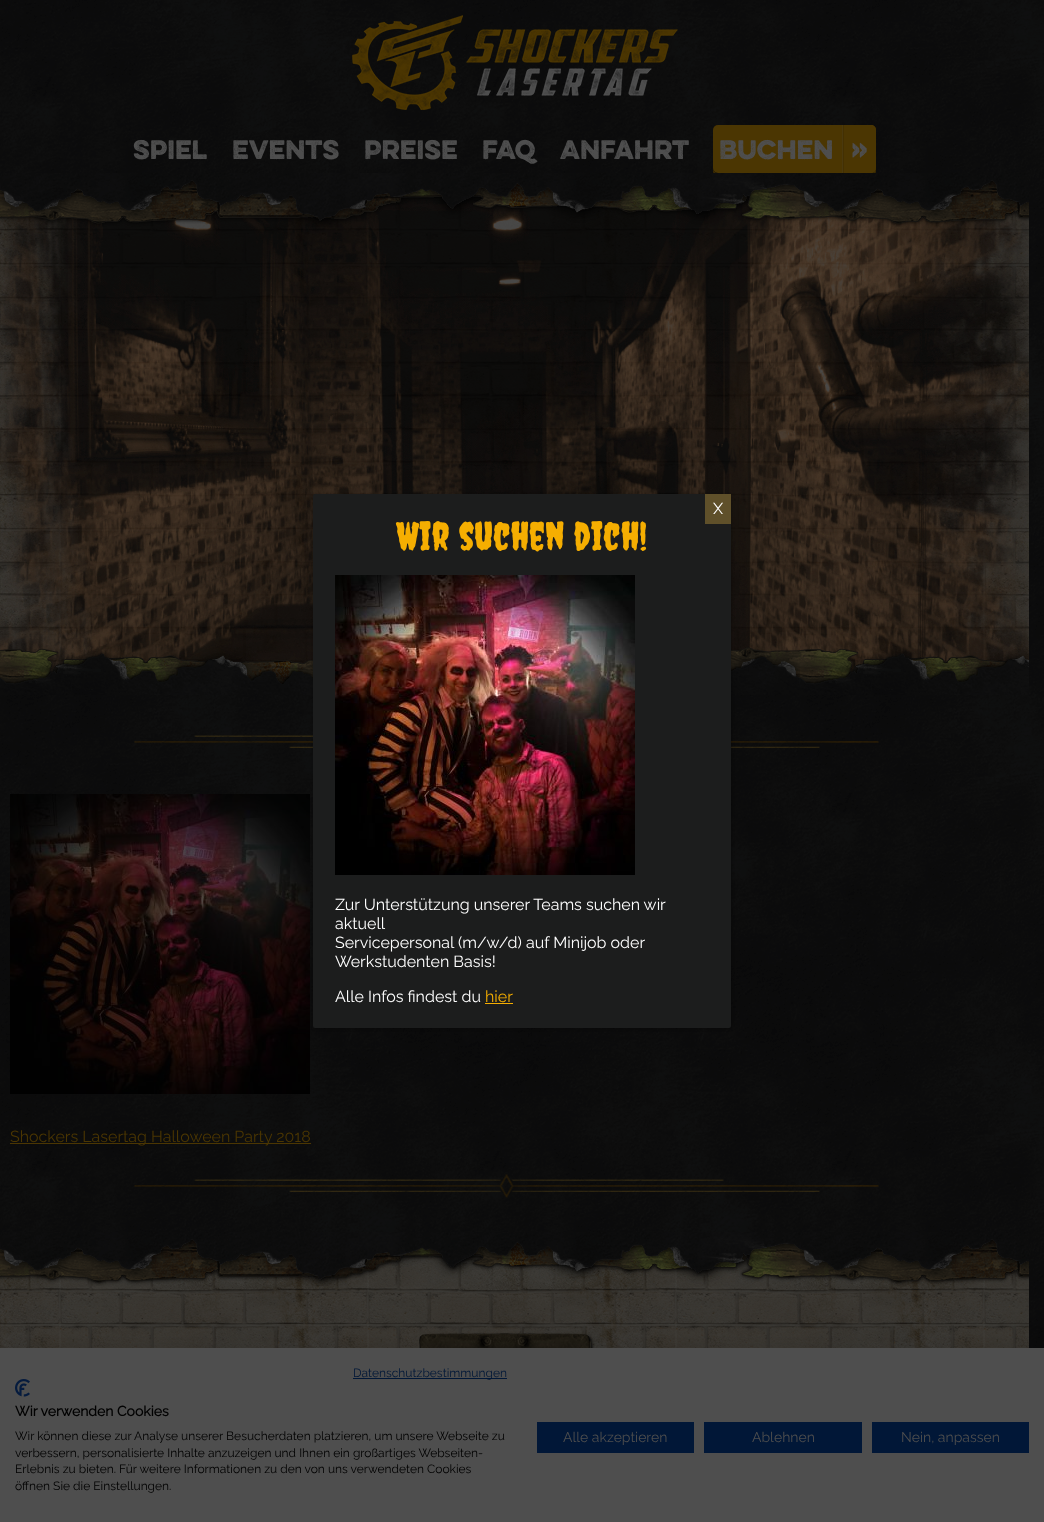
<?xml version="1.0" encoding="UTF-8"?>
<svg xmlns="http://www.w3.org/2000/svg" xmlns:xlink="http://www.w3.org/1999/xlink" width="1044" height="1522">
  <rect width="100%" height="100%" fill="#ffffff" />
  <image x="0" y="0" width="1044" height="1348" xlink:href="image1.png" />
  <image x="352" y="15" width="326" height="95" xlink:href="image2.png" />
  <path d="M 713 168 v 3 c 0 3 2 5 5 5 h 153 c 3 0 5 -2 5 -5 v -3 c 0 3 -2 5 -5 5 h -153 c -3 0 -5 -2 -5 -5 z" fill="#3c2b02" />
  <rect x="713" y="125" width="163" height="48" rx="5" fill="#4b3602" />
  <rect x="842" y="125" width="1" height="48" fill="#4a390e" />
  <rect x="843" y="125" width="1" height="48" fill="#433002" />
  <path d="M 844 125 h 27 c 3 0 5 2 5 5 v 38 c 0 3 -2 5 -5 5 h -27 z" fill="#4b3602" />
  <image x="0" y="196" width="1029" height="477" xlink:href="image3.png" />
  <image x="0" y="196" width="1029" height="477" xlink:href="image5.png" />
  <image x="0" y="173" width="1029" height="54" xlink:href="image4.png" />
  <image x="0" y="646" width="1029" height="49" xlink:href="image6.png" />
  <image x="134" y="735" width="745" height="13" xlink:href="image7.png" />
  <image x="10" y="794" width="300" height="300" xlink:href="image8.png" />
  <rect x="10" y="1143" width="301" height="1" fill="#4b3602" />
  <image x="134" y="1174" width="745" height="24" xlink:href="image9.png" />
  <image x="0" y="1255" width="1029" height="93" xlink:href="image10.png" />
  <image x="0" y="1232" width="1029" height="54" xlink:href="image11.png" />
  <image x="419" y="1332" width="176" height="16" xlink:href="image12.png" />
  <rect x="314" y="495" width="418" height="534" rx="2" fill="#020202" fill-opacity="0.23" filter="blur(1.5px)" />
  <rect x="313" y="494" width="418" height="534" rx="2" fill="#1c1d1d" />
  <rect x="705" y="494" width="26" height="30" fill="#5f502a" />
  <image x="335" y="575" width="300" height="300" xlink:href="image13.png" />
  <rect x="485" y="1003" width="28" height="1" fill="#f5ae01" />
  <rect y="1348" width="1044" height="174" fill="#010101" fill-opacity="0.1" filter="blur(12px)" />
  <rect y="1348" width="1044" height="174" fill="#4e4e4e" />
  <rect x="353" y="1378" width="154" height="1" fill="#011737" />
  <image x="15" y="1379" width="15" height="18" xlink:href="image14.png" />
  <rect x="537" y="1422" width="157" height="31" fill="#011737" />
  <rect x="704" y="1422" width="158" height="31" fill="#011737" />
  <rect x="872" y="1422" width="157" height="31" fill="#011737" />
  <text x="133" y="159" style="font-family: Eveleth; font-size: 24px; font-weight: bold; fill: #4e4e4e">Spiel</text>
  <text x="232" y="159" style="font-family: Eveleth; font-size: 24px; font-weight: bold; fill: #4e4e4e">Events</text>
  <text x="364" y="159" style="font-family: Eveleth; font-size: 24px; font-weight: bold; fill: #4e4e4e">Preise</text>
  <text x="482" y="159" style="font-family: Eveleth; font-size: 24px; font-weight: bold; fill: #4e4e4e">FAQ</text>
  <text x="560" y="159" style="font-family: Eveleth; font-size: 24px; font-weight: bold; fill: #4e4e4e">Anfahrt</text>
  <text x="719" y="159" style="font-family: Eveleth; font-size: 24px; font-weight: bold; fill: #4e4e4e">Buchen</text>
  <text x="851" y="159" style="font-family: Eveleth; font-size: 24px; font-weight: bold; fill: #4e4e4e">»</text>
  <text x="10" y="1142" style="font-family: Raleway; font-size: 16px; font-weight: 100; fill: #4b3602">Shockers Lasertag Halloween Party 2018</text>
  <text x="713" y="514" style="font-family: Raleway; font-size: 16px; font-weight: 100; fill: #ffffff">X</text>
  <text x="396" y="550" style="font-family: Creepster; font-size: 39px; fill: #f5ae01">Wir suchen dich!</text>
  <text x="335" y="910" style="font-family: Raleway; font-size: 16px; font-weight: 100; fill: #ffffff">Zur Unterstützung unserer Teams suchen wir</text>
  <text x="335" y="929" style="font-family: Raleway; font-size: 16px; font-weight: 100; fill: #ffffff">aktuell</text>
  <text x="335" y="948" style="font-family: Raleway; font-size: 16px; font-weight: 100; fill: #ffffff">Servicepersonal (m/w/d) auf Minijob oder</text>
  <text x="335" y="967" style="font-family: Raleway; font-size: 16px; font-weight: 100; fill: #ffffff">Werkstudenten Basis!</text>
  <text x="335" y="1002" style="font-family: Raleway; font-size: 16px; font-weight: 100; fill: #ffffff">Alle Infos findest du</text>
  <text x="485" y="1002" style="font-family: Raleway; font-size: 16px; font-weight: 100; fill: #f5ae01">hier</text>
  <text x="353" y="1377" style="font-family: Raleway; font-size: 12px; font-weight: 100; fill: #011737">Datenschutzbestimmungen</text>
  <text x="15" y="1416" style="font-family: Raleway; font-size: 14px; font-weight: bold; fill: #010101">Wir verwenden Cookies</text>
  <text x="15" y="1440" style="font-family: Raleway; font-size: 12px; font-weight: 100; fill: #010101">Wir können diese zur Analyse unserer Besucherdaten platzieren, um unsere Webseite zu</text>
  <text x="15" y="1457" style="font-family: Raleway; font-size: 12px; font-weight: 100; fill: #010101">verbessern, personalisierte Inhalte anzuzeigen und Ihnen ein großartiges Webseiten-</text>
  <text x="15" y="1473" style="font-family: Raleway; font-size: 12px; font-weight: 100; fill: #010101">Erlebnis zu bieten. Für weitere Informationen zu den von uns verwendeten Cookies</text>
  <text x="15" y="1490" style="font-family: Raleway; font-size: 12px; font-weight: 100; fill: #010101">öffnen Sie die Einstellungen.</text>
  <text x="563" y="1442" style="font-family: Raleway; font-size: 14px; font-weight: 100; fill: #4e4e4e">Alle akzeptieren</text>
  <text x="752" y="1442" style="font-family: Raleway; font-size: 14px; font-weight: 100; fill: #4e4e4e">Ablehnen</text>
  <text x="901" y="1442" style="font-family: Raleway; font-size: 14px; font-weight: 100; fill: #4e4e4e">Nein, anpassen</text>
</svg>
